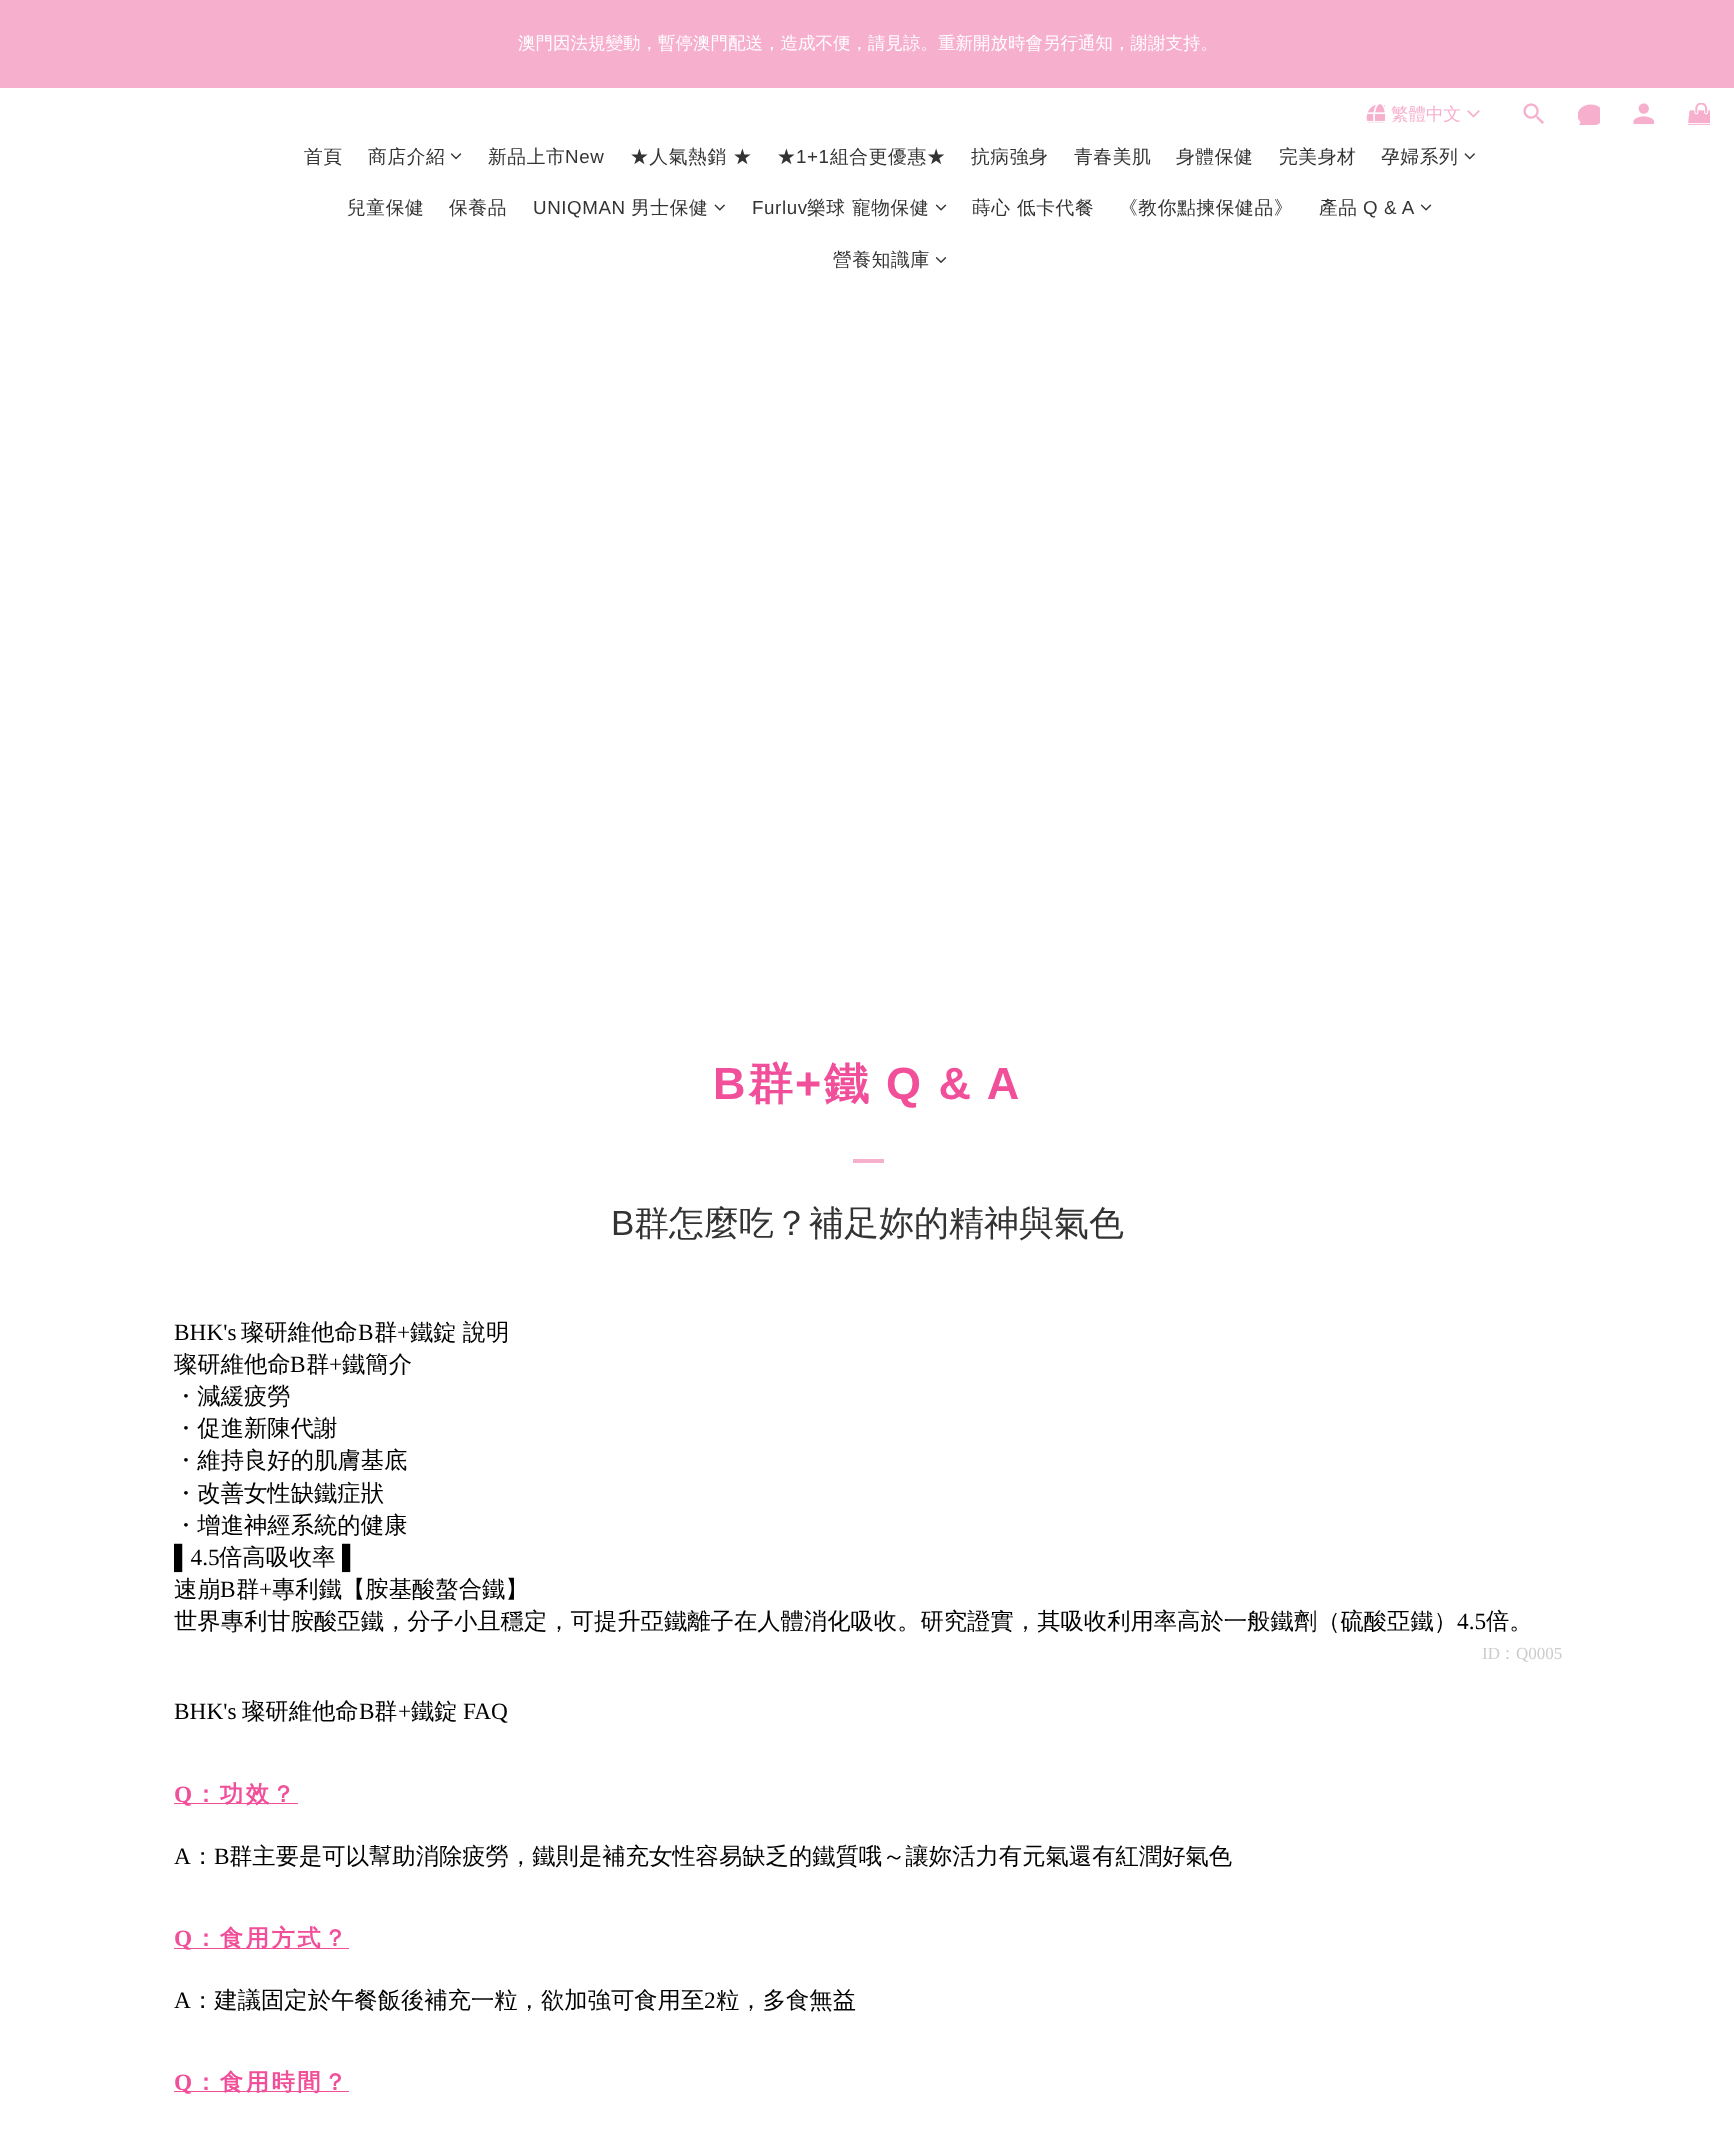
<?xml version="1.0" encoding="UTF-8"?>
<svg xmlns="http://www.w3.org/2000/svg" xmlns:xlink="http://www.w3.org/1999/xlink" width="1734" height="2149">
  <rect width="100%" height="100%" fill="#ffffff" />
  <rect width="1734" height="88" fill="#f6afcd" />
  <image x="1366" y="104" width="19" height="19" xlink:href="image1.png" />
  <image x="1467" y="110" width="13" height="8" xlink:href="image2.png" />
  <image x="1523" y="103" width="21" height="21" xlink:href="image3.png" />
  <image x="1578" y="104" width="22" height="21" xlink:href="image4.png" />
  <image x="1633" y="103" width="22" height="22" xlink:href="image5.png" />
  <image x="1688" y="103" width="22" height="22" xlink:href="image6.png" />
  <image x="450" y="153" width="12" height="7" xlink:href="image7.png" />
  <image x="1464" y="153" width="11" height="7" xlink:href="image8.png" />
  <image x="714" y="204" width="11" height="7" xlink:href="image9.png" />
  <image x="935" y="204" width="12" height="7" xlink:href="image10.png" />
  <image x="1420" y="204" width="12" height="7" xlink:href="image10.png" />
  <image x="935" y="257" width="12" height="6" xlink:href="image11.png" />
  <rect x="853" y="1159" width="31" height="4" fill="#f6afcd" />
  <rect x="174" y="1803" width="124" height="1" fill="#f14f9a" />
  <rect x="174" y="1948" width="175" height="1" fill="#f14f9a" />
  <rect x="174" y="2091" width="175" height="1" fill="#f14f9a" />
  <text x="518" y="49" style="font-family: WenQuanYi Zen Hei; font-size: 17.5px; font-weight: 500; fill: #ffffff">澳門因法規變動，暫停澳門配送，造成不便，請見諒。重新開放時會另行通知，謝謝支持。</text>
  <text x="1391" y="120" style="font-family: WenQuanYi Zen Hei; font-size: 17.5px; font-weight: 500; fill: #f6afcd">繁體中文</text>
  <text x="304" y="163" style="font-family: WenQuanYi Zen Hei; font-size: 18.75px; font-weight: 500; letter-spacing: 0.6px; fill: #333333">首頁</text>
  <text x="368" y="163" style="font-family: WenQuanYi Zen Hei; font-size: 18.75px; font-weight: 500; letter-spacing: 0.6px; fill: #333333">商店介紹</text>
  <text x="488" y="163" style="font-family: WenQuanYi Zen Hei; font-size: 18.75px; font-weight: 500; letter-spacing: 0.6px; fill: #333333">新品上市</text>
  <text x="565" y="163" style="font-family: Liberation Sans; font-size: 18.75px; letter-spacing: 0.6px; fill: #333333">New</text>
  <text x="630" y="163" style="font-family: WenQuanYi Zen Hei; font-size: 18.75px; font-weight: 500; letter-spacing: 0.6px; fill: #333333">★人氣熱銷 ★</text>
  <text x="777" y="163" style="font-family: WenQuanYi Zen Hei; font-size: 18.75px; font-weight: 500; letter-spacing: 0.6px; fill: #333333">★</text>
  <text x="796" y="163" style="font-family: Liberation Sans; font-size: 18.75px; letter-spacing: 0.6px; fill: #333333">1+1</text>
  <text x="830" y="163" style="font-family: WenQuanYi Zen Hei; font-size: 18.75px; font-weight: 500; letter-spacing: 0.6px; fill: #333333">組合更優惠★</text>
  <text x="971" y="163" style="font-family: WenQuanYi Zen Hei; font-size: 18.75px; font-weight: 500; letter-spacing: 0.6px; fill: #333333">抗病強身</text>
  <text x="1074" y="163" style="font-family: WenQuanYi Zen Hei; font-size: 18.75px; font-weight: 500; letter-spacing: 0.6px; fill: #333333">青春美肌</text>
  <text x="1176" y="163" style="font-family: WenQuanYi Zen Hei; font-size: 18.75px; font-weight: 500; letter-spacing: 0.6px; fill: #333333">身體保健</text>
  <text x="1279" y="163" style="font-family: WenQuanYi Zen Hei; font-size: 18.75px; font-weight: 500; letter-spacing: 0.6px; fill: #333333">完美身材</text>
  <text x="1381" y="163" style="font-family: WenQuanYi Zen Hei; font-size: 18.75px; font-weight: 500; letter-spacing: 0.6px; fill: #333333">孕婦系列</text>
  <text x="347" y="214" style="font-family: WenQuanYi Zen Hei; font-size: 18.75px; font-weight: 500; letter-spacing: 0.6px; fill: #333333">兒童保健</text>
  <text x="449" y="214" style="font-family: WenQuanYi Zen Hei; font-size: 18.75px; font-weight: 500; letter-spacing: 0.6px; fill: #333333">保養品</text>
  <text x="533" y="214" style="font-family: Liberation Sans; font-size: 18.75px; letter-spacing: 0.6px; fill: #333333">UNIQMAN</text>
  <text x="631" y="214" style="font-family: WenQuanYi Zen Hei; font-size: 18.75px; font-weight: 500; letter-spacing: 0.6px; fill: #333333">男士保健</text>
  <text x="752" y="214" style="font-family: Liberation Sans; font-size: 18.75px; letter-spacing: 0.6px; fill: #333333">Furluv</text>
  <text x="807" y="214" style="font-family: WenQuanYi Zen Hei; font-size: 18.75px; font-weight: 500; letter-spacing: 0.6px; fill: #333333">樂球 寵物保健</text>
  <text x="972" y="214" style="font-family: WenQuanYi Zen Hei; font-size: 18.75px; font-weight: 500; letter-spacing: 0.6px; fill: #333333">蒔心 低卡代餐</text>
  <text x="1119" y="214" style="font-family: WenQuanYi Zen Hei; font-size: 18.75px; font-weight: 500; letter-spacing: 0.6px; fill: #333333">《教你點揀保健品》</text>
  <text x="1319" y="214" style="font-family: WenQuanYi Zen Hei; font-size: 18.75px; font-weight: 500; letter-spacing: 0.6px; fill: #333333">產品</text>
  <text x="1363" y="214" style="font-family: Liberation Sans; font-size: 18.75px; letter-spacing: 0.6px; fill: #333333">Q &amp; A</text>
  <text x="833" y="266" style="font-family: WenQuanYi Zen Hei; font-size: 18.75px; font-weight: 500; letter-spacing: 0.6px; fill: #333333">營養知識庫</text>
  <text x="713" y="1099" style="font-family: Liberation Sans; font-size: 45px; font-weight: bold; letter-spacing: 2.5px; fill: #f14f9a">B</text>
  <text x="748" y="1099" style="font-family: WenQuanYi Zen Hei; font-size: 45px; font-weight: bold; letter-spacing: 2.5px; fill: #f14f9a">群</text>
  <text x="795" y="1099" style="font-family: Liberation Sans; font-size: 45px; font-weight: bold; letter-spacing: 2.5px; fill: #f14f9a">+</text>
  <text x="824" y="1099" style="font-family: WenQuanYi Zen Hei; font-size: 45px; font-weight: bold; letter-spacing: 2.5px; fill: #f14f9a">鐵</text>
  <text x="886" y="1099" style="font-family: Liberation Sans; font-size: 45px; font-weight: bold; letter-spacing: 2.5px; fill: #f14f9a">Q &amp; A</text>
  <text x="611" y="1235" style="font-family: Liberation Sans; font-size: 35px; fill: #333333">B</text>
  <text x="634" y="1235" style="font-family: WenQuanYi Zen Hei; font-size: 35px; font-weight: 500; fill: #333333">群怎麼吃？補足妳的精神與氣色</text>
  <text x="174" y="1340" style="font-family: Liberation Serif; font-size: 23.33px; fill: #000000">BHK's</text>
  <text x="241" y="1340" style="font-family: WenQuanYi Zen Hei; font-size: 23.33px; font-weight: 500; fill: #000000">璨研維他命</text>
  <text x="358" y="1340" style="font-family: Liberation Serif; font-size: 23.33px; fill: #000000">B</text>
  <text x="374" y="1340" style="font-family: WenQuanYi Zen Hei; font-size: 23.33px; font-weight: 500; fill: #000000">群</text>
  <text x="397" y="1340" style="font-family: Liberation Serif; font-size: 23.33px; fill: #000000">+</text>
  <text x="410" y="1340" word-spacing="-1" style="font-family: WenQuanYi Zen Hei; font-size: 23.33px; font-weight: 500; fill: #000000">鐵錠 說明</text>
  <text x="174" y="1372" style="font-family: WenQuanYi Zen Hei; font-size: 23.33px; font-weight: 500; fill: #000000">璨研維他命</text>
  <text x="290" y="1372" style="font-family: Liberation Serif; font-size: 23.33px; fill: #000000">B</text>
  <text x="306" y="1372" style="font-family: WenQuanYi Zen Hei; font-size: 23.33px; font-weight: 500; fill: #000000">群</text>
  <text x="329" y="1372" style="font-family: Liberation Serif; font-size: 23.33px; fill: #000000">+</text>
  <text x="342" y="1372" style="font-family: WenQuanYi Zen Hei; font-size: 23.33px; font-weight: 500; fill: #000000">鐵簡介</text>
  <text x="174" y="1404" style="font-family: WenQuanYi Zen Hei; font-size: 23.33px; font-weight: 500; fill: #000000">・減緩疲勞</text>
  <text x="174" y="1436" style="font-family: WenQuanYi Zen Hei; font-size: 23.33px; font-weight: 500; fill: #000000">・促進新陳代謝</text>
  <text x="174" y="1468" style="font-family: WenQuanYi Zen Hei; font-size: 23.33px; font-weight: 500; fill: #000000">・維持良好的肌膚基底</text>
  <text x="174" y="1501" style="font-family: WenQuanYi Zen Hei; font-size: 23.33px; font-weight: 500; fill: #000000">・改善女性缺鐵症狀</text>
  <text x="174" y="1533" style="font-family: WenQuanYi Zen Hei; font-size: 23.33px; font-weight: 500; fill: #000000">・增進神經系統的健康</text>
  <text x="174" y="1565" style="font-family: Liberation Serif; font-size: 23.33px; fill: #000000">▌4.5</text>
  <text x="219" y="1565" style="font-family: WenQuanYi Zen Hei; font-size: 23.33px; font-weight: 500; fill: #000000">倍高吸收率</text>
  <text x="342" y="1565" style="font-family: Liberation Serif; font-size: 23.33px; fill: #000000">▌</text>
  <text x="174" y="1597" style="font-family: WenQuanYi Zen Hei; font-size: 23.33px; font-weight: 500; fill: #000000">速崩</text>
  <text x="220" y="1597" style="font-family: Liberation Serif; font-size: 23.33px; fill: #000000">B</text>
  <text x="236" y="1597" style="font-family: WenQuanYi Zen Hei; font-size: 23.33px; font-weight: 500; fill: #000000">群</text>
  <text x="259" y="1597" style="font-family: Liberation Serif; font-size: 23.33px; fill: #000000">+</text>
  <text x="272" y="1597" style="font-family: WenQuanYi Zen Hei; font-size: 23.33px; font-weight: 500; fill: #000000">專利鐵【胺基酸螯合鐵】</text>
  <text x="174" y="1629" style="font-family: WenQuanYi Zen Hei; font-size: 23.33px; font-weight: 500; fill: #000000">世界專利甘胺酸亞鐵，分子小且穩定，可提升亞鐵離子在人體消化吸收。研究證實，其吸收利用率高於一般鐵劑（硫酸亞鐵）</text>
  <text x="1457" y="1629" style="font-family: Liberation Serif; font-size: 23.33px; fill: #000000">4.5</text>
  <text x="1486" y="1629" style="font-family: WenQuanYi Zen Hei; font-size: 23.33px; font-weight: 500; fill: #000000">倍。</text>
  <text x="1482" y="1659" style="font-family: Liberation Serif; font-size: 17px; fill: #cccccc">ID</text>
  <text x="1499" y="1659" style="font-family: WenQuanYi Zen Hei; font-size: 17px; font-weight: 500; fill: #cccccc">：</text>
  <text x="1516" y="1659" style="font-family: Liberation Serif; font-size: 17px; fill: #cccccc">Q0005</text>
  <text x="174" y="1719" style="font-family: Liberation Serif; font-size: 23.33px; fill: #000000">BHK's</text>
  <text x="242" y="1719" style="font-family: WenQuanYi Zen Hei; font-size: 23.33px; font-weight: 500; fill: #000000">璨研維他命</text>
  <text x="359" y="1719" style="font-family: Liberation Serif; font-size: 23.33px; fill: #000000">B</text>
  <text x="374" y="1719" style="font-family: WenQuanYi Zen Hei; font-size: 23.33px; font-weight: 500; fill: #000000">群</text>
  <text x="398" y="1719" style="font-family: Liberation Serif; font-size: 23.33px; fill: #000000">+</text>
  <text x="411" y="1719" style="font-family: WenQuanYi Zen Hei; font-size: 23.33px; font-weight: 500; fill: #000000">鐵錠</text>
  <text x="463" y="1719" style="font-family: Liberation Serif; font-size: 23.33px; fill: #000000">FAQ</text>
  <text x="174" y="1802" style="font-family: Liberation Serif; font-size: 23.33px; font-weight: bold; letter-spacing: 2.5px; fill: #f14f9a">Q</text>
  <text x="194" y="1802" style="font-family: WenQuanYi Zen Hei; font-size: 23.33px; font-weight: bold; letter-spacing: 2.5px; fill: #f14f9a">：功效？</text>
  <text x="174" y="1864" style="font-family: Liberation Serif; font-size: 23.33px; fill: #000000">A</text>
  <text x="191" y="1864" style="font-family: WenQuanYi Zen Hei; font-size: 23.33px; font-weight: 500; fill: #000000">：</text>
  <text x="214" y="1864" style="font-family: Liberation Serif; font-size: 23.33px; fill: #000000">B</text>
  <text x="229" y="1864" style="font-family: WenQuanYi Zen Hei; font-size: 23.33px; font-weight: 500; fill: #000000">群主要是可以幫助消除疲勞，鐵則是補充女性容易缺乏的鐵質哦～讓妳活力有元氣還有紅潤好氣色</text>
  <text x="174" y="1946" style="font-family: Liberation Serif; font-size: 23.33px; font-weight: bold; letter-spacing: 2.5px; fill: #f14f9a">Q</text>
  <text x="194" y="1946" style="font-family: WenQuanYi Zen Hei; font-size: 23.33px; font-weight: bold; letter-spacing: 2.5px; fill: #f14f9a">：食用方式？</text>
  <text x="174" y="2008" style="font-family: Liberation Serif; font-size: 23.33px; fill: #000000">A</text>
  <text x="191" y="2008" style="font-family: WenQuanYi Zen Hei; font-size: 23.33px; font-weight: 500; fill: #000000">：建議固定於午餐飯後補充一粒，欲加強可食用至</text>
  <text x="704" y="2008" style="font-family: Liberation Serif; font-size: 23.33px; fill: #000000">2</text>
  <text x="716" y="2008" style="font-family: WenQuanYi Zen Hei; font-size: 23.33px; font-weight: 500; fill: #000000">粒，多食無益</text>
  <text x="174" y="2090" style="font-family: Liberation Serif; font-size: 23.33px; font-weight: bold; letter-spacing: 2.5px; fill: #f14f9a">Q</text>
  <text x="194" y="2090" style="font-family: WenQuanYi Zen Hei; font-size: 23.33px; font-weight: bold; letter-spacing: 2.5px; fill: #f14f9a">：食用時間？</text>
</svg>
